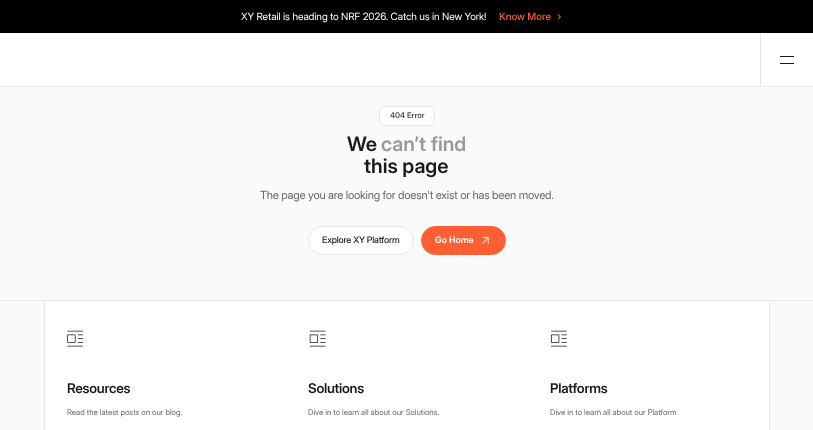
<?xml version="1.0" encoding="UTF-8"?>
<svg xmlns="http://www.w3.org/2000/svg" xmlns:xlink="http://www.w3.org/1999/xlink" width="813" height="430">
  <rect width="100%" height="100%" fill="#ffffff" />
  <rect y="86" width="813" height="1" fill="#e6e6e6" />
  <rect width="813" height="33" fill="#000000" />
  <image x="557" y="14" width="4" height="6" xlink:href="image1.png" />
  <rect x="760" y="33" width="1" height="53" fill="#e6e6e6" />
  <rect x="780" y="56" width="14" height="1" fill="#1a1a1a" />
  <rect x="780" y="63" width="14" height="1" fill="#1a1a1a" />
  <rect y="88" width="813" height="342" fill="#fafafa" />
  <rect y="300" width="813" height="1" fill="#e6e6e6" />
  <rect x="379.5" y="106.5" width="55" height="19" rx="5.5" fill="#ffffff" stroke="#e6e6e6" />
  <rect x="308.5" y="226.5" width="105" height="28" rx="14" fill="#ffffff" stroke="#e6e6e6" />
  <rect x="421.5" y="226.5" width="84" height="28" rx="14" fill="#ff5f33" stroke="#ff5f33" />
  <image x="482" y="237" width="7" height="7" xlink:href="image2.png" />
  <rect x="45" y="301" width="724" height="129" fill="#ffffff" />
  <rect x="769" y="301" width="1" height="129" fill="#e6e6e6" />
  <rect x="44" y="301" width="1" height="129" fill="#e6e6e6" />
  <image x="67" y="330" width="17" height="17" xlink:href="image3.png" />
  <image x="309" y="330" width="17" height="17" xlink:href="image4.png" />
  <image x="551" y="330" width="16" height="17" xlink:href="image5.png" />
  <text x="241" y="20" style="font-family: Inter; font-size: 10.1px; letter-spacing: -0.1px; fill: #ffffff">XY Retail is heading to NRF 2026. Catch us in New York!</text>
  <text x="499" y="20" style="font-family: Inter; font-size: 10.1px; font-weight: 500; fill: #ff5f33">Know More</text>
  <text x="390" y="118" style="font-family: Inter; font-size: 7.8px; font-weight: 600; fill: #4d4d4d">404 Error</text>
  <text x="347" y="151" style="font-family: Inter; font-size: 20px; font-weight: 600; fill: #1a1a1a">We</text>
  <text x="381" y="151" style="font-family: Inter; font-size: 20px; font-weight: 600; fill: #999999">can’t find</text>
  <text x="364" y="173" style="font-family: Inter; font-size: 20px; font-weight: 600; fill: #1a1a1a">this page</text>
  <text x="260" y="199" style="font-family: Inter; font-size: 11.2px; letter-spacing: -0.22px; fill: #666666">The page you are looking for doesn't exist or has been moved.</text>
  <text x="322" y="243" style="font-family: Inter; font-size: 9px; font-weight: 500; letter-spacing: -0.2px; fill: #1a1a1a">Explore XY Platform</text>
  <text x="435" y="243" style="font-family: Inter; font-size: 9px; font-weight: 600; fill: #ffffff">Go Home</text>
  <text x="67" y="393" style="font-family: Inter; font-size: 13.5px; font-weight: 600; letter-spacing: -0.25px; fill: #1a1a1a">Resources</text>
  <text x="67" y="415" style="font-family: Inter; font-size: 7.8px; fill: #666666">Read the latest posts on our blog.</text>
  <text x="308" y="393" style="font-family: Inter; font-size: 13.5px; font-weight: 600; letter-spacing: -0.25px; fill: #1a1a1a">Solutions</text>
  <text x="308" y="415" style="font-family: Inter; font-size: 7.8px; fill: #666666">Dive in to learn all about our Solutions.</text>
  <text x="550" y="393" style="font-family: Inter; font-size: 13.5px; font-weight: 600; letter-spacing: -0.25px; fill: #1a1a1a">Platforms</text>
  <text x="550" y="415" style="font-family: Inter; font-size: 7.8px; fill: #666666">Dive in to learn all about our Platform</text>
</svg>
